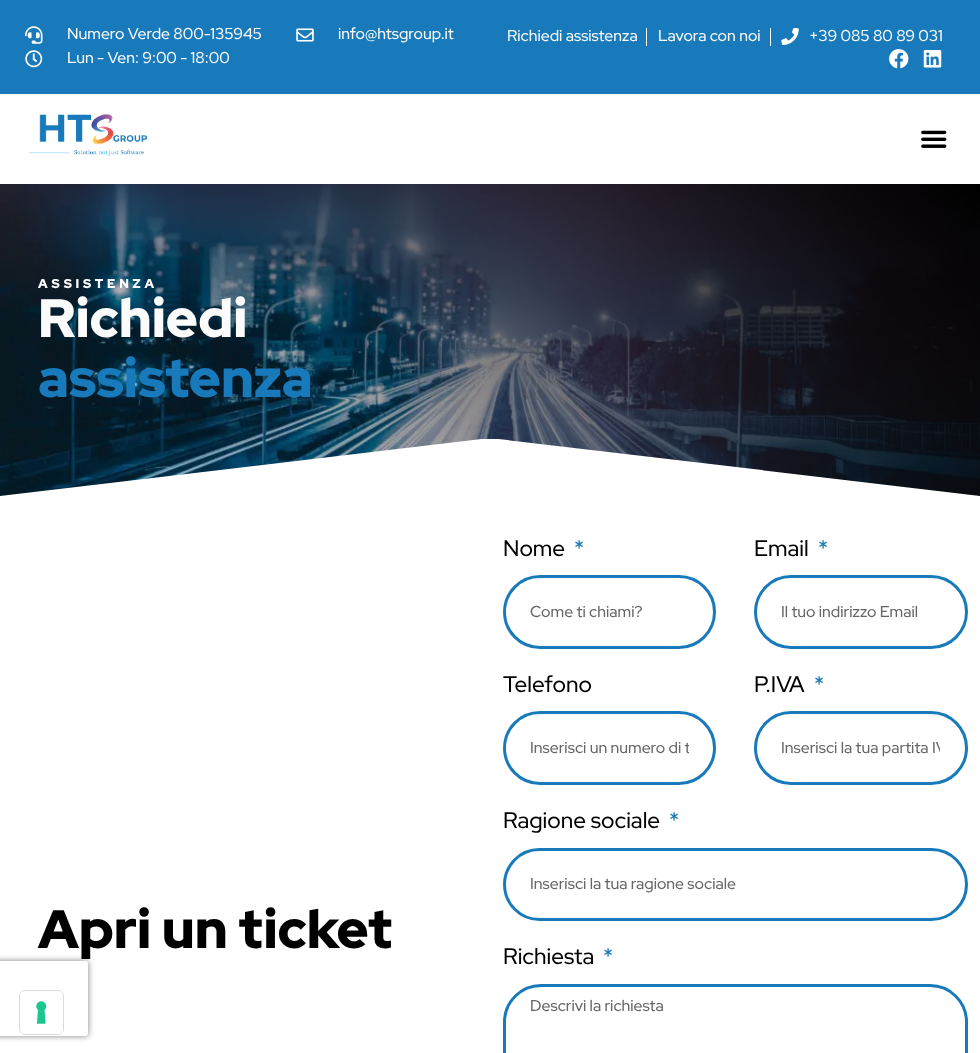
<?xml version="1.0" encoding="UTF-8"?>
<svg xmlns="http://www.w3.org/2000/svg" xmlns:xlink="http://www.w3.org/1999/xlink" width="980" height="1053">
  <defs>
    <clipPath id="clip1"><rect y="439" width="980" height="62" /></clipPath>
    <clipPath id="clip2"><path d="M 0 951 h 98 v 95 h -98 z m -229.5 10 h 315 c 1.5 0 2.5 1 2.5 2.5 v 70 c 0 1.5 -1 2.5 -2.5 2.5 h -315 c -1.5 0 -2.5 -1 -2.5 -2.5 v -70 c 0 -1.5 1 -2.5 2.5 -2.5 z" clip-rule="evenodd" /></clipPath>
    <clipPath id="clip3"><rect x="530" y="736" width="159" height="22" /></clipPath>
    <clipPath id="clip4"><rect x="781" y="736" width="159" height="22" /></clipPath>
  </defs>
  <rect width="100%" height="100%" fill="#ffffff" />
  <rect width="980" height="94" fill="#187abb" />
  <image x="25" y="26" width="18" height="18" xlink:href="image1.png" />
  <image x="296" y="28" width="18" height="14" xlink:href="image2.png" />
  <image x="25" y="50" width="18" height="18" xlink:href="image3.png" />
  <rect x="646" y="28" width="1" height="18" fill="#ffffff" />
  <rect x="770" y="28" width="1" height="18" fill="#ffffff" />
  <image x="781" y="28" width="18" height="17" xlink:href="image4.png" />
  <image x="889" y="49" width="20" height="20" xlink:href="image5.png" />
  <image x="923" y="50" width="19" height="18" xlink:href="image6.png" />
  <image x="29" y="114" width="119" height="42" xlink:href="image7.png" />
  <image x="921" y="130" width="26" height="18" xlink:href="image8.png" />
  <image x="0" y="184" width="980" height="312" xlink:href="image9.png" />
  <g clip-path="url(#clip1)">
    <path d="M 490 438 l 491 58 v 4 h -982 v -4 z" fill="#ffffff" />
  </g>
  <rect x="504.5" y="576.5" width="210" height="71" rx="35.5" fill="none" stroke="#187abb" stroke-width="3" />
  <rect x="755.5" y="576.5" width="211" height="71" rx="35.5" fill="none" stroke="#187abb" stroke-width="3" />
  <rect x="504.5" y="712.5" width="210" height="71" rx="35.5" fill="none" stroke="#187abb" stroke-width="3" />
  <rect x="755.5" y="712.5" width="211" height="71" rx="35.5" fill="none" stroke="#187abb" stroke-width="3" />
  <rect x="504.5" y="849.5" width="462" height="70" rx="35" fill="none" stroke="#187abb" stroke-width="3" />
  <g clip-path="url(#clip2)">
    <rect x="-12" y="961" width="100" height="75" rx="2.5" fill="#808080" filter="blur(3px)" />
  </g>
  <rect x="504.5" y="985.5" width="462" height="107" rx="36.5" fill="none" stroke="#187abb" stroke-width="3" />
  <rect x="19.5" y="990.5" width="44" height="44" rx="5.5" fill="none" stroke="#d9d9d9" />
  <rect x="20" y="991" width="43" height="43" rx="5" fill="#ffffff" />
  <image x="36" y="1001" width="11" height="23" xlink:href="image10.png" />
  <text x="67" y="39" style="font-family: Red Hat Display; font-size: 15.75px; font-weight: 500; fill: #fbfbfb">Numero Verde 800-135945</text>
  <text x="338" y="39" style="font-family: Red Hat Display; font-size: 15.75px; font-weight: 500; fill: #fbfbfb">info@htsgroup.it</text>
  <text x="67" y="63" style="font-family: Red Hat Display; font-size: 15.75px; font-weight: 500; fill: #fbfbfb">Lun - Ven: 9:00 - 18:00</text>
  <text x="507" y="41" style="font-family: Red Hat Display; font-size: 15.75px; font-weight: 500; fill: #fbfbfb">Richiedi assistenza</text>
  <text x="658" y="41" style="font-family: Red Hat Display; font-size: 15.75px; font-weight: 500; fill: #fbfbfb">Lavora con noi</text>
  <text x="809" y="41" style="font-family: Red Hat Display; font-size: 15.75px; font-weight: 500; fill: #fbfbfb">+39 085 80 89 031</text>
  <text x="38" y="288" style="font-family: Red Hat Display; font-size: 12.75px; font-weight: 900; letter-spacing: 3.75px; fill: #fbfbfb">ASSISTENZA</text>
  <text x="38" y="337" style="font-family: Red Hat Display; font-size: 54px; font-weight: 900; fill: #fbfbfb">Richiedi</text>
  <text x="38" y="397" style="font-family: Red Hat Display; font-size: 54px; font-weight: 900; fill: #187abb">assistenza</text>
  <text x="38" y="948" style="font-family: Red Hat Display; font-size: 54px; font-weight: 900; fill: #000000">Apri un ticket</text>
  <text x="503" y="556" style="font-family: Red Hat Display; font-size: 22.5px; font-weight: 500; fill: #000000">Nome</text>
  <text x="574" y="556" style="font-family: Red Hat Display; font-size: 22.5px; font-weight: 500; fill: #187abb">*</text>
  <text x="530" y="617" style="font-family: Red Hat Display; font-size: 15.75px; font-weight: 500; fill: #666666">Come ti chiami?</text>
  <text x="754" y="556" style="font-family: Red Hat Display; font-size: 22.5px; font-weight: 500; fill: #000000">Email</text>
  <text x="818" y="556" style="font-family: Red Hat Display; font-size: 22.5px; font-weight: 500; fill: #187abb">*</text>
  <text x="781" y="617" style="font-family: Red Hat Display; font-size: 15.75px; font-weight: 500; fill: #666666">Il tuo indirizzo Email</text>
  <text x="503" y="692" style="font-family: Red Hat Display; font-size: 22.5px; font-weight: 500; fill: #000000">Telefono</text>
  <g clip-path="url(#clip3)">
    <text x="530" y="753" style="font-family: Red Hat Display; font-size: 15.75px; font-weight: 500; fill: #666666">Inserisci un numero di t</text>
  </g>
  <text x="754" y="692" style="font-family: Red Hat Display; font-size: 22.5px; font-weight: 500; fill: #000000">P.IVA</text>
  <text x="814" y="692" style="font-family: Red Hat Display; font-size: 22.5px; font-weight: 500; fill: #187abb">*</text>
  <g clip-path="url(#clip4)">
    <text x="781" y="753" style="font-family: Red Hat Display; font-size: 15.75px; font-weight: 500; fill: #666666">Inserisci la tua partita IV</text>
  </g>
  <text x="503" y="828" style="font-family: Red Hat Display; font-size: 22.5px; font-weight: 500; fill: #000000">Ragione sociale</text>
  <text x="669" y="828" style="font-family: Red Hat Display; font-size: 22.5px; font-weight: 500; fill: #187abb">*</text>
  <text x="530" y="889" style="font-family: Red Hat Display; font-size: 15.75px; font-weight: 500; fill: #666666">Inserisci la tua ragione sociale</text>
  <text x="503" y="964" style="font-family: Red Hat Display; font-size: 22.5px; font-weight: 500; fill: #000000">Richiesta</text>
  <text x="603" y="964" style="font-family: Red Hat Display; font-size: 22.5px; font-weight: 500; fill: #187abb">*</text>
  <text x="530" y="1011" style="font-family: Red Hat Display; font-size: 15.75px; font-weight: 500; fill: #666666">Descrivi la richiesta</text>
</svg>
